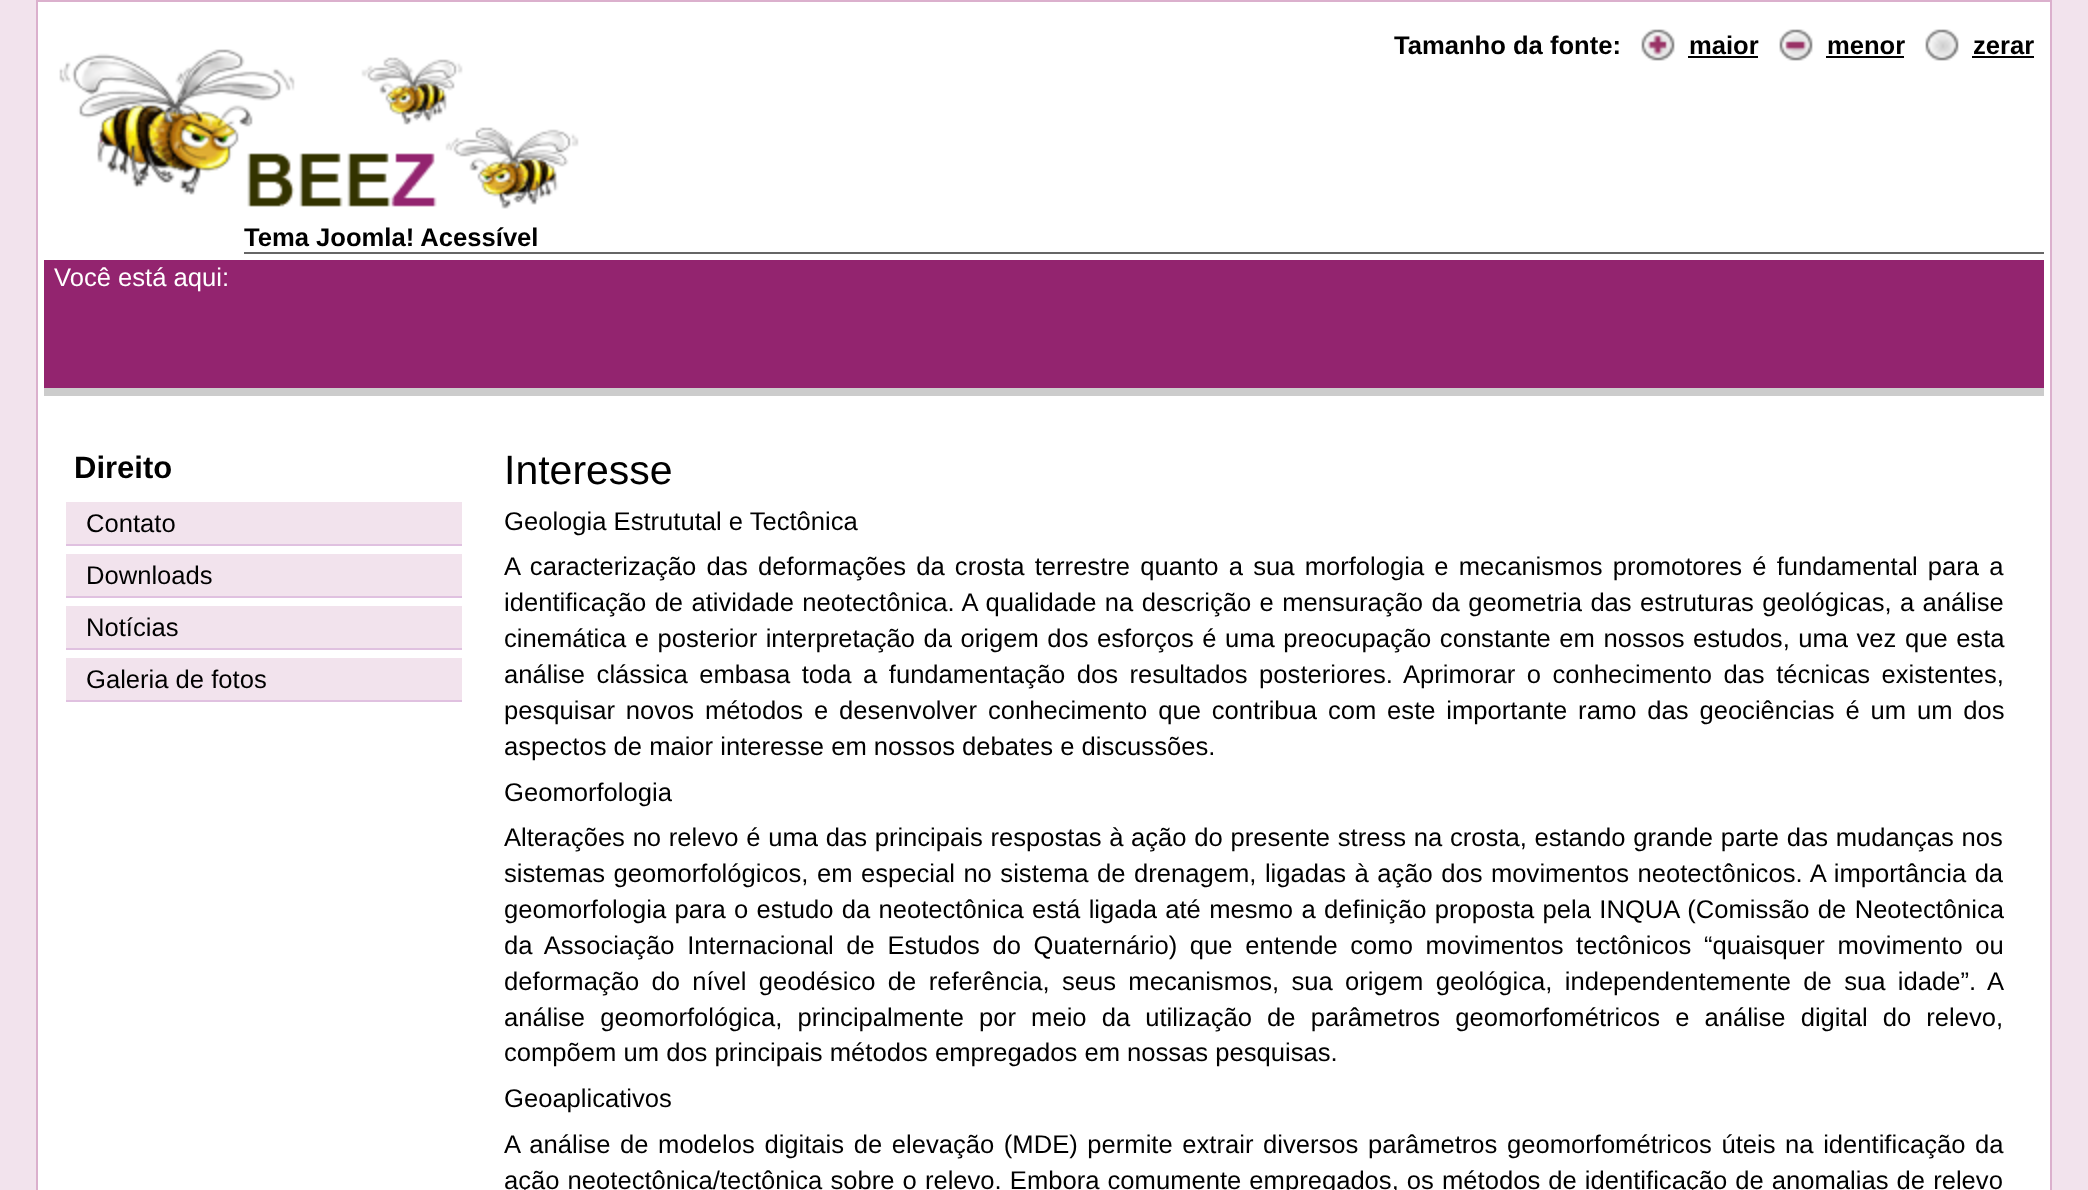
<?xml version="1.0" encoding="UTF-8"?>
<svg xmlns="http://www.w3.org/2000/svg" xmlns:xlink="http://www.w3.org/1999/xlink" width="2088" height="1190">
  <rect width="100%" height="100%" fill="#f2e3ed" />
  <rect x="37" y="1" width="2014" height="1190" fill="#ffffff" stroke="#dbb0cd" stroke-width="2" />
  <rect x="44" y="388" width="2000" height="8" fill="#cccccc" />
  <image x="1641" y="29" width="34" height="32" xlink:href="image1.png" />
  <rect x="1688" y="56" width="70" height="2" fill="#000000" />
  <image x="1779" y="29" width="34" height="32" xlink:href="image2.png" />
  <rect x="1826" y="56" width="78" height="2" fill="#000000" />
  <image x="1925" y="29" width="34" height="32" xlink:href="image3.png" />
  <rect x="1972" y="56" width="62" height="2" fill="#000000" />
  <image x="59" y="49" width="520" height="160" xlink:href="image4.png" />
  <rect x="244" y="252" width="1800" height="2" fill="#666666" />
  <rect x="44" y="260" width="2000" height="128" fill="#93246f" />
  <rect x="66" y="502" width="396" height="42" fill="#f2e3ed" />
  <rect x="66" y="544" width="396" height="2" fill="#e0c1e0" />
  <rect x="66" y="554" width="396" height="42" fill="#f2e3ed" />
  <rect x="66" y="596" width="396" height="2" fill="#e0c1e0" />
  <rect x="66" y="606" width="396" height="42" fill="#f2e3ed" />
  <rect x="66" y="648" width="396" height="2" fill="#e0c1e0" />
  <rect x="66" y="658" width="396" height="42" fill="#f2e3ed" />
  <rect x="66" y="700" width="396" height="2" fill="#e0c1e0" />
  <text x="1394" y="54" style="font-family: Liberation Sans; font-size: 25.6px; font-weight: bold; fill: #000000">Tamanho da fonte:</text>
  <text x="1689" y="54" style="font-family: Liberation Sans; font-size: 25.6px; font-weight: bold; fill: #000000">maior</text>
  <text x="1827" y="54" style="font-family: Liberation Sans; font-size: 25.6px; font-weight: bold; fill: #000000">menor</text>
  <text x="1973" y="54" style="font-family: Liberation Sans; font-size: 25.6px; font-weight: bold; fill: #000000">zerar</text>
  <text x="244" y="246" style="font-family: Liberation Sans; font-size: 25.6px; font-weight: bold; fill: #000000">Tema Joomla! Acessível</text>
  <text x="54" y="286" style="font-family: Liberation Sans; font-size: 25.6px; fill: #ffffff">Você está aqui:</text>
  <text x="74" y="478" style="font-family: Liberation Sans; font-size: 31px; font-weight: bold; fill: #000000">Direito</text>
  <text x="86" y="532" style="font-family: Liberation Sans; font-size: 25.6px; fill: #000000">Contato</text>
  <text x="86" y="584" style="font-family: Liberation Sans; font-size: 25.6px; fill: #000000">Downloads</text>
  <text x="86" y="636" style="font-family: Liberation Sans; font-size: 25.6px; fill: #000000">Notícias</text>
  <text x="86" y="688" style="font-family: Liberation Sans; font-size: 25.6px; fill: #000000">Galeria de fotos</text>
  <text x="504" y="484" style="font-family: Liberation Sans; font-size: 41px; fill: #000000">Interesse</text>
  <text x="504" y="530" style="font-family: Liberation Sans; font-size: 25.6px; fill: #000000">Geologia Estrututal e Tectônica</text>
  <text x="504" y="575" word-spacing="3.1" style="font-family: Liberation Sans; font-size: 25.6px; fill: #000000">A caracterização das deformações da crosta terrestre quanto a sua morfologia e mecanismos promotores é fundamental para a</text>
  <text x="504" y="611" word-spacing="1.25" style="font-family: Liberation Sans; font-size: 25.6px; fill: #000000">identificação de atividade neotectônica. A qualidade na descrição e mensuração da geometria das estruturas geológicas, a análise</text>
  <text x="504" y="647" word-spacing="1.4" style="font-family: Liberation Sans; font-size: 25.6px; fill: #000000">cinemática e posterior interpretação da origem dos esforços é uma preocupação constante em nossos estudos, uma vez que esta</text>
  <text x="504" y="683" word-spacing="4.4" style="font-family: Liberation Sans; font-size: 25.6px; fill: #000000">análise clássica embasa toda a fundamentação dos resultados posteriores. Aprimorar o conhecimento das técnicas existentes,</text>
  <text x="504" y="719" word-spacing="3.75" style="font-family: Liberation Sans; font-size: 25.6px; fill: #000000">pesquisar novos métodos e desenvolver conhecimento que contribua com este importante ramo das geociências é um um dos</text>
  <text x="504" y="755" style="font-family: Liberation Sans; font-size: 25.6px; fill: #000000">aspectos de maior interesse em nossos debates e discussões.</text>
  <text x="504" y="801" style="font-family: Liberation Sans; font-size: 25.6px; fill: #000000">Geomorfologia</text>
  <text x="504" y="846" word-spacing="0.6" style="font-family: Liberation Sans; font-size: 25.6px; fill: #000000">Alterações no relevo é uma das principais respostas à ação do presente stress na crosta, estando grande parte das mudanças nos</text>
  <text x="504" y="882" word-spacing="1.4" style="font-family: Liberation Sans; font-size: 25.6px; fill: #000000">sistemas geomorfológicos, em especial no sistema de drenagem, ligadas à ação dos movimentos neotectônicos. A importância da</text>
  <text x="504" y="918" word-spacing="1.2" style="font-family: Liberation Sans; font-size: 25.6px; fill: #000000">geomorfologia para o estudo da neotectônica está ligada até mesmo a definição proposta pela INQUA (Comissão de Neotectônica</text>
  <text x="504" y="954" word-spacing="5.5" style="font-family: Liberation Sans; font-size: 25.6px; fill: #000000">da Associação Internacional de Estudos do Quaternário) que entende como movimentos tectônicos “quaisquer movimento ou</text>
  <text x="504" y="990" word-spacing="5.25" style="font-family: Liberation Sans; font-size: 25.6px; fill: #000000">deformação do nível geodésico de referência, seus mecanismos, sua origem geológica, independentemente de sua idade”. A</text>
  <text x="504" y="1026" word-spacing="8" style="font-family: Liberation Sans; font-size: 25.6px; fill: #000000">análise geomorfológica, principalmente por meio da utilização de parâmetros geomorfométricos e análise digital do relevo,</text>
  <text x="504" y="1061" style="font-family: Liberation Sans; font-size: 25.6px; fill: #000000">compõem um dos principais métodos empregados em nossas pesquisas.</text>
  <text x="504" y="1107" style="font-family: Liberation Sans; font-size: 25.6px; fill: #000000">Geoaplicativos</text>
  <text x="504" y="1153" word-spacing="2.5" style="font-family: Liberation Sans; font-size: 25.6px; fill: #000000">A análise de modelos digitais de elevação (MDE) permite extrair diversos parâmetros geomorfométricos úteis na identificação da</text>
  <text x="504" y="1189" word-spacing="1" style="font-family: Liberation Sans; font-size: 25.6px; fill: #000000">ação neotectônica/tectônica sobre o relevo. Embora comumente empregados, os métodos de identificação de anomalias de relevo</text>
</svg>
